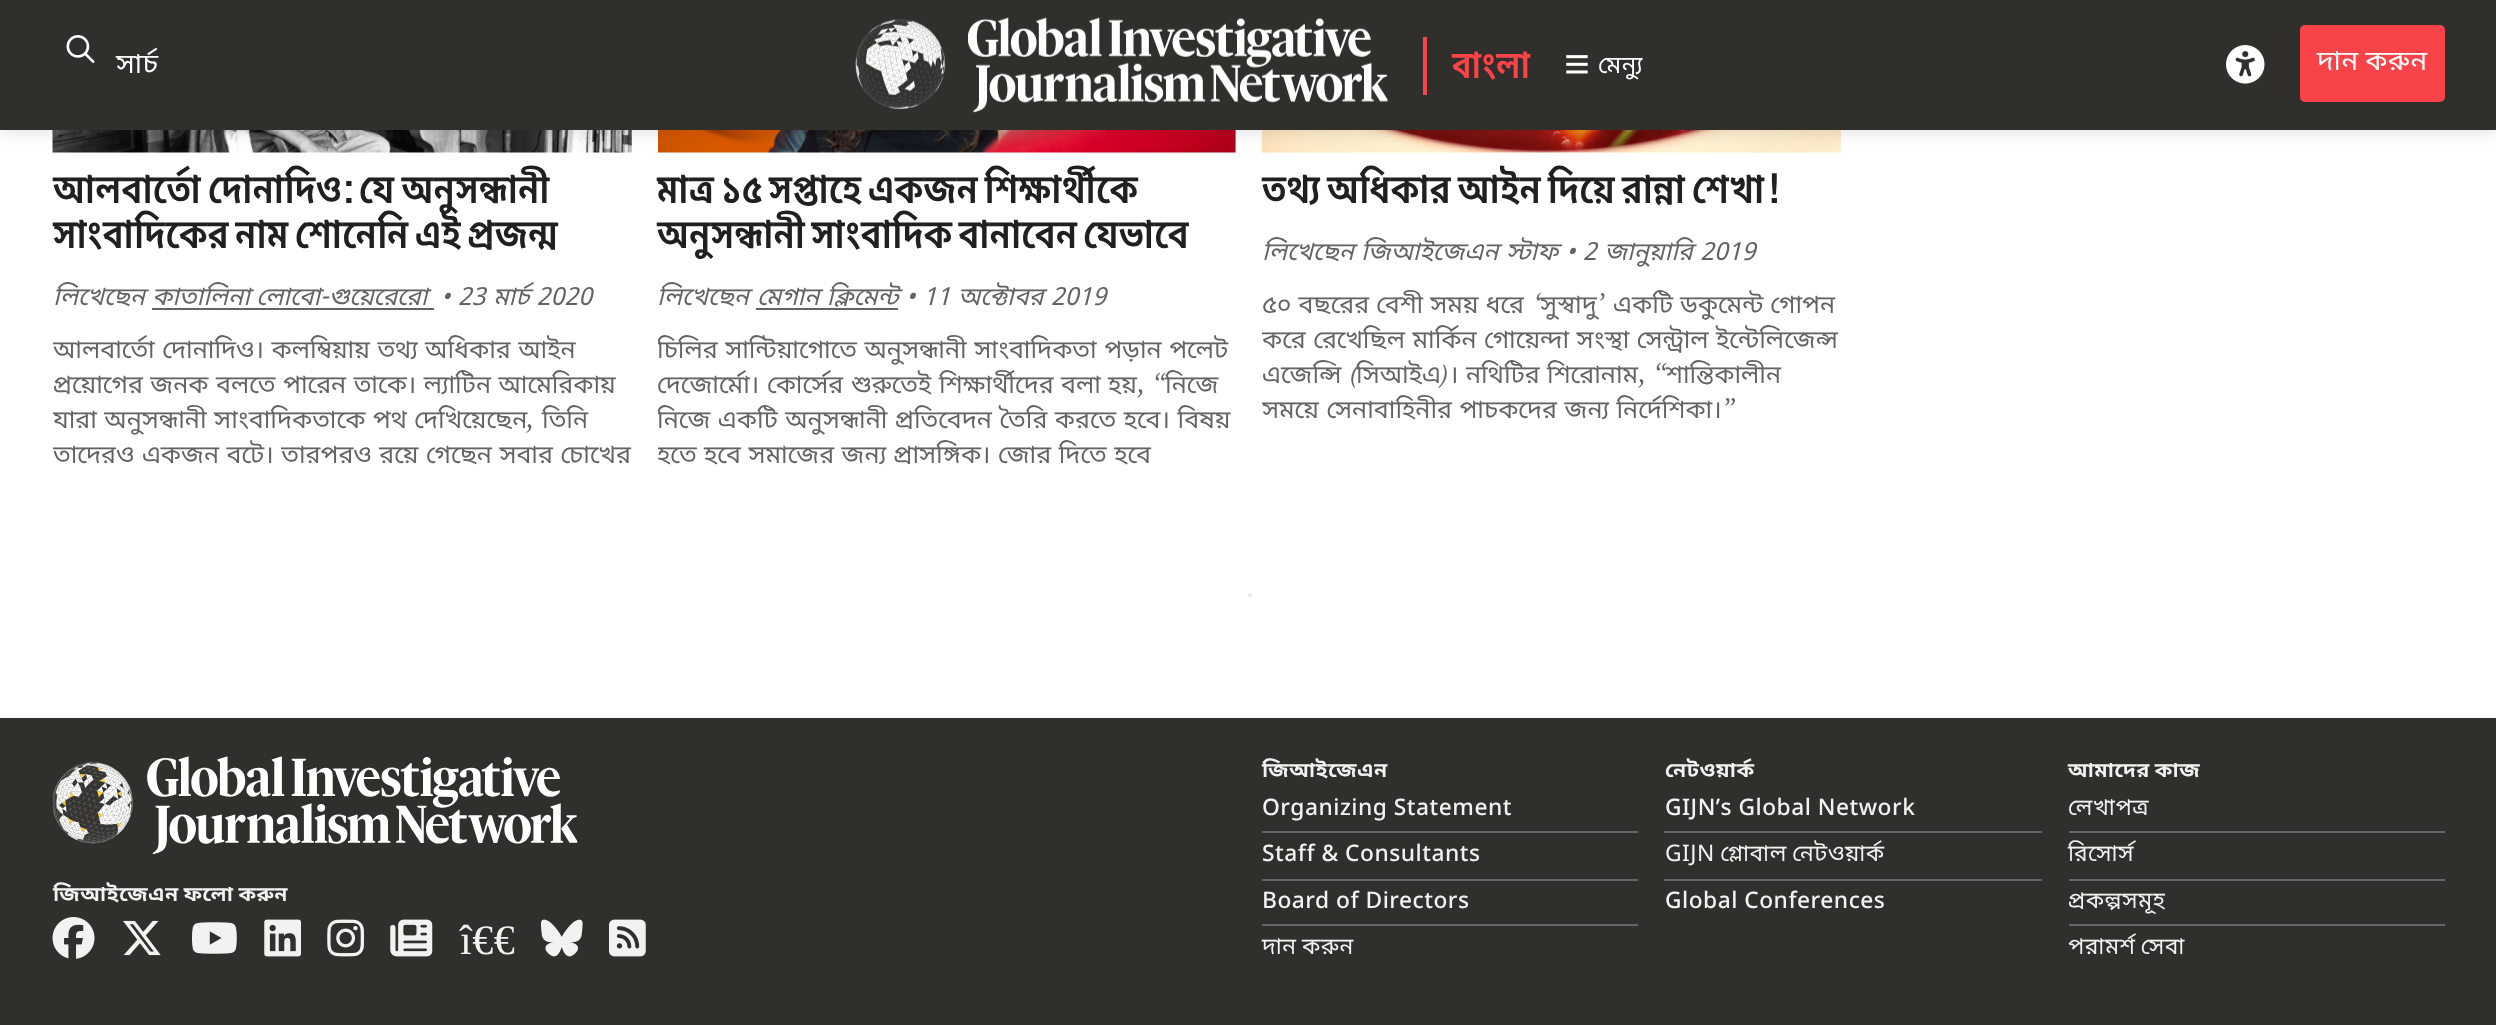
<?xml version="1.0" encoding="UTF-8"?>
<svg xmlns="http://www.w3.org/2000/svg" xmlns:xlink="http://www.w3.org/1999/xlink" width="2496" height="1025">
  <defs>
    <clipPath id="clip1"><rect x="53" y="331" width="579" height="142" /></clipPath>
    <clipPath id="clip2"><rect x="658" y="331" width="578" height="142" /></clipPath>
    <clipPath id="clip3"><rect x="1262" y="287" width="579" height="140" /></clipPath>
  </defs>
  <rect width="100%" height="100%" fill="#ffffff" />
  <image x="52" y="130" width="580" height="23" xlink:href="image6.png" />
  <rect x="1235" y="130" width="1" height="22" fill="#dddddd" />
  <image x="658" y="130" width="578" height="23" xlink:href="image7.png" />
  <image x="1261" y="130" width="580" height="23" xlink:href="image8.png" />
  <rect width="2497" height="130" fill="#000000" fill-opacity="0.15" filter="blur(9px)" />
  <rect width="2496" height="130" fill="#302f2c" />
  <image x="66" y="35" width="29" height="28" xlink:href="image1.png" />
  <image x="855" y="19" width="91" height="91" xlink:href="image2.png" />
  <image x="968" y="17" width="420" height="96" xlink:href="image3.png" />
  <rect x="1423" y="37" width="4" height="58" fill="#f84449" />
  <image x="1566" y="55" width="22" height="19" xlink:href="image4.png" />
  <image x="2226" y="45" width="39" height="39" xlink:href="image5.png" />
  <rect x="2300" y="25" width="145" height="77" rx="5" fill="#f84449" />
  <rect x="152" y="308" width="282" height="2" fill="#636363" />
  <rect x="756" y="308" width="142" height="2" fill="#636363" />
  <circle cx="1250" cy="595" r="2" fill="#eee9e0" />
  <rect y="718" width="2496" height="307" fill="#302f2c" />
  <image x="53" y="756" width="525" height="98" xlink:href="image9.png" />
  <image x="52" y="917" width="43" height="42" xlink:href="image10.png" />
  <image x="123" y="920" width="38" height="36" xlink:href="image11.png" />
  <image x="192" y="922" width="45" height="32" xlink:href="image12.png" />
  <image x="264" y="919" width="37" height="38" xlink:href="image13.png" />
  <image x="327" y="919" width="37" height="38" xlink:href="image14.png" />
  <image x="390" y="919" width="43" height="38" xlink:href="image15.png" />
  <image x="540" y="919" width="43" height="38" xlink:href="image16.png" />
  <image x="609" y="919" width="37" height="38" xlink:href="image17.png" />
  <rect x="1262" y="831" width="376" height="2" fill="#666666" />
  <rect x="1262" y="879" width="376" height="2" fill="#666666" />
  <rect x="1262" y="924" width="376" height="2" fill="#666666" />
  <rect x="1664" y="831" width="378" height="2" fill="#666666" />
  <rect x="1664" y="879" width="378" height="2" fill="#666666" />
  <rect x="2069" y="831" width="376" height="2" fill="#666666" />
  <rect x="2069" y="879" width="376" height="2" fill="#666666" />
  <rect x="2069" y="924" width="376" height="2" fill="#666666" />
  <text x="116" y="73" style="font-family: Noto Sans Bengali; font-size: 27.5px; letter-spacing: 0.5px; fill: #ffffff">সার্চ</text>
  <text x="1452" y="78" style="font-family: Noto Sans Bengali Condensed; font-size: 38.5px; font-weight: 600; letter-spacing: 0.5px; fill: #f84449">বাংলা</text>
  <text x="1598" y="73" style="font-family: Noto Sans Bengali; font-size: 24px; letter-spacing: 0.5px; fill: #ffffff">মেন্যু</text>
  <text x="2317" y="70" word-spacing="-1" style="font-family: Noto Sans Bengali; font-size: 27.5px; letter-spacing: 0.5px; fill: #ffffff">দান করুন</text>
  <text x="53" y="203" word-spacing="-2" style="font-family: Noto Sans Bengali Condensed; font-size: 41px; font-weight: 600; letter-spacing: 0.4px; fill: #202020">আলবার্তো দোনাদিও</text>
  <text x="344" y="203" style="font-family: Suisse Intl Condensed; font-size: 41px; font-weight: 500; letter-spacing: 0.4px; fill: #202020">:</text>
  <text x="359" y="203" word-spacing="-2" style="font-family: Noto Sans Bengali Condensed; font-size: 41px; font-weight: 600; letter-spacing: 0.4px; fill: #202020">যে অনুসন্ধানী</text>
  <text x="53" y="248" word-spacing="-2.5" style="font-family: Noto Sans Bengali Condensed; font-size: 41px; font-weight: 600; letter-spacing: 0.4px; fill: #202020">সাংবাদিকের নাম শোনেনি এই প্রজন্ম</text>
  <text x="53" y="305" style="font-family: Noto Sans Bengali; font-size: 25px; font-style: italic; fill: #636363">লিখেছেন</text>
  <text x="152" y="305" style="font-family: Noto Sans Bengali; font-size: 25px; font-style: italic; fill: #636363">কাতালিনা লোবো-গুয়েরেরো</text>
  <text x="441" y="305" word-spacing="1" style="font-family: Noto Sans Bengali; font-size: 25px; font-style: italic; fill: #636363">• 23 মার্চ 2020</text>
  <g clip-path="url(#clip1)">
    <text x="53" y="358" word-spacing="1" style="font-family: Noto Sans Bengali; font-size: 25px; fill: #636363">আলবার্তো দোনাদিও। কলম্বিয়ায় তথ্য অধিকার আইন</text>
  </g>
  <text x="53" y="393" word-spacing="1" style="font-family: Noto Sans Bengali; font-size: 25px; fill: #636363">প্রয়োগের জনক বলতে পারেন তাকে। ল্যাটিন আমেরিকায়</text>
  <g clip-path="url(#clip1)">
    <text x="53" y="428" word-spacing="1" style="font-family: Noto Sans Bengali; font-size: 25px; fill: #636363">যারা অনুসন্ধানী সাংবাদিকতাকে পথ দেখিয়েছেন</text>
  </g>
  <text x="526" y="428" style="font-family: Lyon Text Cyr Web; font-size: 25px; font-style: italic; fill: #636363">,</text>
  <text x="542" y="428" style="font-family: Noto Sans Bengali; font-size: 25px; fill: #636363">তিনি</text>
  <g clip-path="url(#clip1)">
    <text x="53" y="463" word-spacing="1" style="font-family: Noto Sans Bengali; font-size: 25px; fill: #636363">তাদেরও একজন বটে। তারপরও রয়ে গেছেন সবার চোখের</text>
  </g>
  <text x="657" y="203" word-spacing="-2.5" style="font-family: Noto Sans Bengali Condensed; font-size: 41px; font-weight: 600; letter-spacing: 0.4px; fill: #202020">মাত্র ১৫ সপ্তাহে একজন শিক্ষার্থীকে</text>
  <text x="657" y="248" word-spacing="-3" style="font-family: Noto Sans Bengali Condensed; font-size: 41px; font-weight: 600; letter-spacing: 0.4px; fill: #202020">অনুসন্ধানী সাংবাদিক বানাবেন যেভাবে</text>
  <text x="657" y="305" style="font-family: Noto Sans Bengali; font-size: 25px; font-style: italic; fill: #636363">লিখেছেন</text>
  <text x="757" y="305" word-spacing="1" style="font-family: Noto Sans Bengali; font-size: 25px; font-style: italic; fill: #636363">মেগান ক্লিমেন্ট</text>
  <text x="906" y="305" word-spacing="1" style="font-family: Noto Sans Bengali; font-size: 25px; font-style: italic; fill: #636363">• 11 অক্টোবর 2019</text>
  <g clip-path="url(#clip2)">
    <text x="657" y="358" word-spacing="1" style="font-family: Noto Sans Bengali; font-size: 25px; fill: #636363">চিলির সান্টিয়াগোতে অনুসন্ধানী সাংবাদিকতা পড়ান পলেট</text>
    <text x="657" y="393" style="font-family: Noto Sans Bengali; font-size: 25px; fill: #636363">দেজোর্মো।</text>
  </g>
  <text x="767" y="393" style="font-family: Noto Sans Bengali; font-size: 25px; fill: #636363">কোর্সের</text>
  <text x="851" y="393" style="font-family: Noto Sans Bengali; font-size: 25px; fill: #636363">শুরুতেই</text>
  <text x="939" y="393" style="font-family: Noto Sans Bengali; font-size: 25px; fill: #636363">শিক্ষার্থীদের</text>
  <text x="1061" y="393" style="font-family: Noto Sans Bengali; font-size: 25px; fill: #636363">বলা</text>
  <text x="1108" y="393" style="font-family: Noto Sans Bengali; font-size: 25px; fill: #636363">হয়</text>
  <text x="1137" y="393" style="font-family: Lyon Text Cyr Web; font-size: 25px; font-style: italic; fill: #636363">, “</text>
  <text x="1165" y="393" style="font-family: Noto Sans Bengali; font-size: 25px; fill: #636363">নিজে</text>
  <g clip-path="url(#clip2)">
    <text x="657" y="428" word-spacing="1" style="font-family: Noto Sans Bengali; font-size: 25px; fill: #636363">নিজে একটি অনুসন্ধানী প্রতিবেদন তৈরি করতে হবে। বিষয়</text>
    <text x="657" y="463" word-spacing="1" style="font-family: Noto Sans Bengali; font-size: 25px; fill: #636363">হতে হবে সমাজের জন্য প্রাসঙ্গিক। জোর দিতে হবে</text>
  </g>
  <text x="1262" y="203" word-spacing="-2" style="font-family: Noto Sans Bengali Condensed; font-size: 41px; font-weight: 600; letter-spacing: 0.4px; fill: #202020">তথ্য অধিকার আইন দিয়ে রান্না শেখা</text>
  <text x="1769" y="203" style="font-family: Suisse Intl Condensed; font-size: 41px; font-weight: 500; letter-spacing: 0.4px; fill: #202020">!</text>
  <text x="1262" y="260" style="font-family: Noto Sans Bengali; font-size: 25px; font-style: italic; fill: #636363">লিখেছেন</text>
  <text x="1361" y="260" word-spacing="1" style="font-family: Noto Sans Bengali; font-size: 25px; font-style: italic; fill: #636363">জিআইজেএন স্টাফ</text>
  <text x="1566" y="260" word-spacing="1" style="font-family: Noto Sans Bengali; font-size: 25px; font-style: italic; fill: #636363">• 2 জানুয়ারি 2019</text>
  <text x="1262" y="313" word-spacing="0.5" style="font-family: Noto Sans Bengali; font-size: 25px; fill: #636363">৫০ বছরের বেশী সময় ধরে</text>
  <text x="1533" y="313" style="font-family: Lyon Text Cyr Web; font-size: 25px; font-style: italic; fill: #636363">‘</text>
  <text x="1597" y="313" style="font-family: Lyon Text Cyr Web; font-size: 25px; font-style: italic; fill: #636363">’</text>
  <text x="1613" y="313" word-spacing="0.5" style="font-family: Noto Sans Bengali; font-size: 25px; fill: #636363">একটি ডকুমেন্ট গোপন</text>
  <text x="1540" y="313" style="font-family: Noto Sans Bengali; font-size: 25px; fill: #636363">সুস্বাদু</text>
  <g clip-path="url(#clip3)">
    <text x="1262" y="348" word-spacing="1" style="font-family: Noto Sans Bengali; font-size: 25px; fill: #636363">করে রেখেছিল মার্কিন গোয়েন্দা সংস্থা সেন্ট্রাল ইন্টেলিজেন্স</text>
  </g>
  <text x="1262" y="383" style="font-family: Noto Sans Bengali; font-size: 25px; fill: #636363">এজেন্সি</text>
  <text x="1466" y="383" style="font-family: Noto Sans Bengali; font-size: 25px; fill: #636363">নথিটির</text>
  <text x="1547" y="383" style="font-family: Noto Sans Bengali; font-size: 25px; fill: #636363">শিরোনাম</text>
  <text x="1638" y="383" style="font-family: Lyon Text Cyr Web; font-size: 25px; font-style: italic; fill: #636363">, “</text>
  <text x="1666" y="383" style="font-family: Noto Sans Bengali; font-size: 25px; fill: #636363">শান্তিকালীন</text>
  <text x="1349" y="383" style="font-family: Lyon Text Cyr Web; font-size: 25px; font-style: italic; fill: #636363">(</text>
  <text x="1356" y="383" style="font-family: Noto Sans Bengali; font-size: 25px; fill: #636363">সিআইএ</text>
  <text x="1441" y="383" style="font-family: Lyon Text Cyr Web; font-size: 25px; font-style: italic; fill: #636363">)</text>
  <text x="1449" y="383" style="font-family: Noto Sans Bengali; font-size: 25px; fill: #636363">।</text>
  <g clip-path="url(#clip3)">
    <text x="1262" y="418" word-spacing="1" style="font-family: Noto Sans Bengali; font-size: 25px; fill: #636363">সময়ে সেনাবাহিনীর পাচকদের জন্য নির্দেশিকা।</text>
  </g>
  <text x="1722" y="418" style="font-family: Lyon Text Cyr Web; font-size: 25px; font-style: italic; fill: #636363">”</text>
  <text x="53" y="901" word-spacing="-1" style="font-family: Noto Sans Bengali; font-size: 20.5px; font-weight: bold; letter-spacing: 0.6px; fill: #f2f2f2">জিআইজেএন ফলো করুন</text>
  <text x="460" y="954" style="font-family: Liberation Serif; font-size: 42px; letter-spacing: 0.5px; fill: #f2f2f2">î€€</text>
  <text x="1262" y="777" style="font-family: Noto Sans Bengali; font-size: 20.5px; font-weight: bold; letter-spacing: 0.6px; fill: #f2f2f2">জিআইজেএন</text>
  <text x="1262" y="815" style="font-family: Noto Sans Arabic; font-size: 22.75px; font-weight: 500; letter-spacing: 0.5px; fill: #f2f2f2">Organizing Statement</text>
  <text x="1262" y="861" style="font-family: Noto Sans Arabic; font-size: 22.75px; font-weight: 500; letter-spacing: 0.5px; fill: #f2f2f2">Staff &amp; Consultants</text>
  <text x="1262" y="908" style="font-family: Noto Sans Arabic; font-size: 22.75px; font-weight: 500; letter-spacing: 0.5px; fill: #f2f2f2">Board of Directors</text>
  <text x="1262" y="954" word-spacing="-1" style="font-family: Noto Sans Bengali; font-size: 22.75px; letter-spacing: 0.5px; fill: #f2f2f2">দান করুন</text>
  <text x="1665" y="777" style="font-family: Noto Sans Bengali; font-size: 20.5px; font-weight: bold; letter-spacing: 0.6px; fill: #f2f2f2">নেটওয়ার্ক</text>
  <text x="1665" y="815" style="font-family: Noto Sans Arabic; font-size: 22.75px; font-weight: 500; letter-spacing: 0.5px; fill: #f2f2f2">GIJN’s Global Network</text>
  <text x="1665" y="861" word-spacing="-1" style="font-family: Noto Sans Bengali; font-size: 22.75px; letter-spacing: 0.5px; fill: #f2f2f2">GIJN গ্লোবাল নেটওয়ার্ক</text>
  <text x="1665" y="908" style="font-family: Noto Sans Arabic; font-size: 22.75px; font-weight: 500; letter-spacing: 0.5px; fill: #f2f2f2">Global Conferences</text>
  <text x="2068" y="777" word-spacing="-1" style="font-family: Noto Sans Bengali; font-size: 20.5px; font-weight: bold; letter-spacing: 0.6px; fill: #f2f2f2">আমাদের কাজ</text>
  <text x="2068" y="815" style="font-family: Noto Sans Bengali; font-size: 22.75px; letter-spacing: 0.5px; fill: #f2f2f2">লেখাপত্র</text>
  <text x="2068" y="861" style="font-family: Noto Sans Bengali; font-size: 22.75px; letter-spacing: 0.5px; fill: #f2f2f2">রিসোর্স</text>
  <text x="2068" y="908" style="font-family: Noto Sans Bengali; font-size: 22.75px; letter-spacing: 0.5px; fill: #f2f2f2">প্রকল্পসমূহ</text>
  <text x="2068" y="954" word-spacing="-1" style="font-family: Noto Sans Bengali; font-size: 22.75px; letter-spacing: 0.5px; fill: #f2f2f2">পরামর্শ সেবা</text>
</svg>
